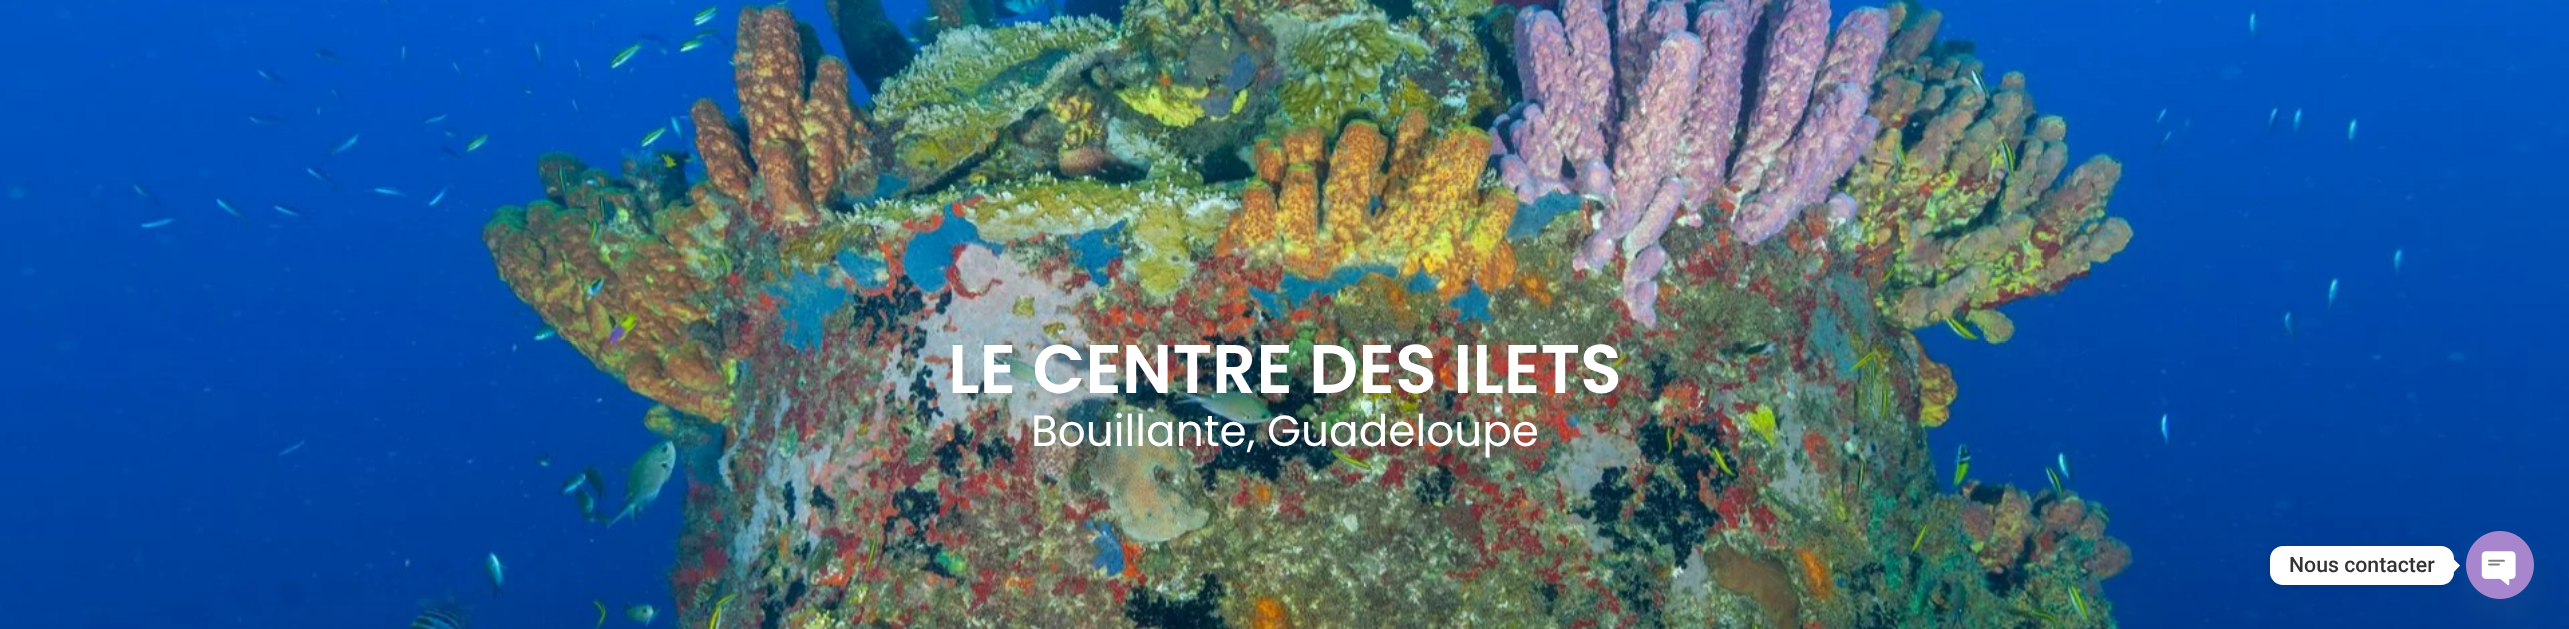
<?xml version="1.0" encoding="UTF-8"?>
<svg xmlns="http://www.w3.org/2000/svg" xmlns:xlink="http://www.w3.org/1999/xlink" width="2569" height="629">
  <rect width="100%" height="100%" fill="#ffffff" />
  <image x="0" y="0" width="2569" height="629" xlink:href="image1.png" />
  <rect x="2270" y="548" width="184" height="38" rx="13" fill="#000000" fill-opacity="0.15" filter="blur(5px)" />
  <rect x="2270" y="546" width="184" height="39" rx="13" fill="#ffffff" />
  <path d="M 2454 572 v -12.5 l 6 6 z" fill="#ffffff" />
  <rect x="2466" y="551" width="68" height="68" rx="34" fill="#49687e" fill-opacity="0.16" filter="blur(15px)" />
  <image x="2466" y="531" width="68" height="68" xlink:href="image2.png" />
  <text x="948" y="393" style="font-family: Poppins; font-size: 68.75px; font-weight: 600; fill: #ffffff">LE CENTRE DES ILETS</text>
  <text x="1031" y="446" style="font-family: Poppins; font-size: 43.75px; fill: #ffffff">Bouillante, Guadeloupe</text>
  <text x="2289" y="572" style="font-family: Roboto; font-size: 21.25px; font-weight: 500; fill: #333333">Nous contacter</text>
</svg>
